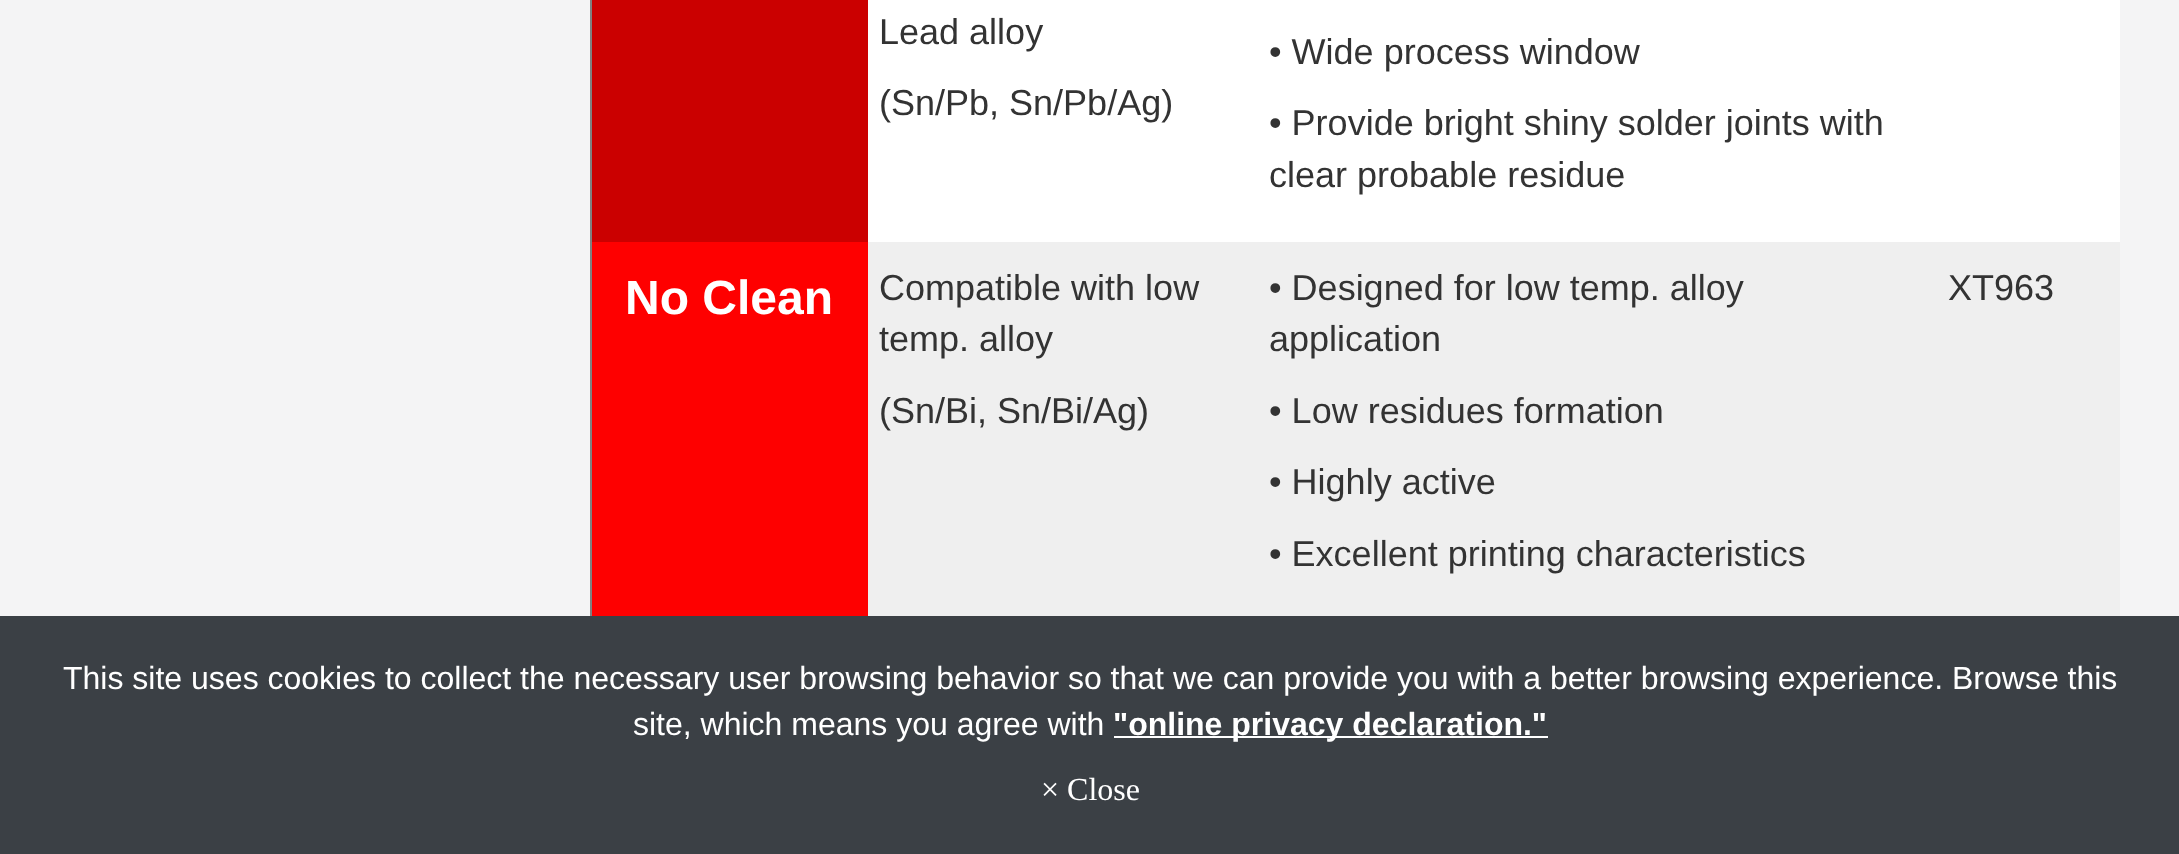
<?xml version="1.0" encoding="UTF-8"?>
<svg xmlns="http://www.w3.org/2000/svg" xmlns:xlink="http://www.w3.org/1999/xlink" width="2179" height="854">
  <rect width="100%" height="100%" fill="#f4f4f5" />
  <rect x="592" width="276" height="242" fill="#cb0000" />
  <rect x="868" width="1252" height="242" fill="#ffffff" />
  <rect x="590" width="2" height="622" fill="#808080" />
  <rect x="592" y="242" width="276" height="374" fill="#fe0000" />
  <rect x="868" y="242" width="1252" height="374" fill="#efefef" />
  <rect y="616" width="2179" height="238" fill="#3b4045" />
  <rect x="1114" y="736" width="434" height="2" fill="#ffffff" />
  <text x="879" y="44" style="font-family: Liberation Sans; font-size: 36px; fill: #333333">Lead alloy</text>
  <text x="879" y="115" style="font-family: Liberation Sans; font-size: 36px; fill: #333333">(Sn/Pb, Sn/Pb/Ag)</text>
  <text x="1269" y="64" style="font-family: Liberation Sans; font-size: 36px; fill: #333333">• Wide process window</text>
  <text x="1269" y="135" style="font-family: Liberation Sans; font-size: 36px; fill: #333333">• Provide bright shiny solder joints with</text>
  <text x="1269" y="187" style="font-family: Liberation Sans; font-size: 36px; fill: #333333">clear probable residue</text>
  <text x="625" y="314" style="font-family: Liberation Sans; font-size: 48px; font-weight: bold; fill: #ffffff">No Clean</text>
  <text x="879" y="300" style="font-family: Liberation Sans; font-size: 36px; fill: #333333">Compatible with low</text>
  <text x="879" y="351" style="font-family: Liberation Sans; font-size: 36px; fill: #333333">temp. alloy</text>
  <text x="879" y="423" style="font-family: Liberation Sans; font-size: 36px; fill: #333333">(Sn/Bi, Sn/Bi/Ag)</text>
  <text x="1269" y="300" style="font-family: Liberation Sans; font-size: 36px; fill: #333333">• Designed for low temp. alloy</text>
  <text x="1269" y="351" style="font-family: Liberation Sans; font-size: 36px; fill: #333333">application</text>
  <text x="1269" y="423" style="font-family: Liberation Sans; font-size: 36px; fill: #333333">• Low residues formation</text>
  <text x="1269" y="494" style="font-family: Liberation Sans; font-size: 36px; fill: #333333">• Highly active</text>
  <text x="1269" y="566" style="font-family: Liberation Sans; font-size: 36px; fill: #333333">• Excellent printing characteristics</text>
  <text x="1948" y="300" style="font-family: Liberation Sans; font-size: 36px; fill: #333333">XT963</text>
  <text x="63" y="689" style="font-family: Liberation Sans; font-size: 32px; fill: #ffffff">This site uses cookies to collect the necessary user browsing behavior so that we can provide you with a better browsing experience. Browse this</text>
  <text x="633" y="735" style="font-family: Liberation Sans; font-size: 32px; fill: #ffffff">site, which means you agree with</text>
  <text x="1113" y="735" style="font-family: Liberation Sans; font-size: 32px; font-weight: bold; fill: #ffffff">"online privacy declaration."</text>
  <text x="1041" y="800" style="font-family: Liberation Serif; font-size: 32px; fill: #ffffff">× Close</text>
</svg>
